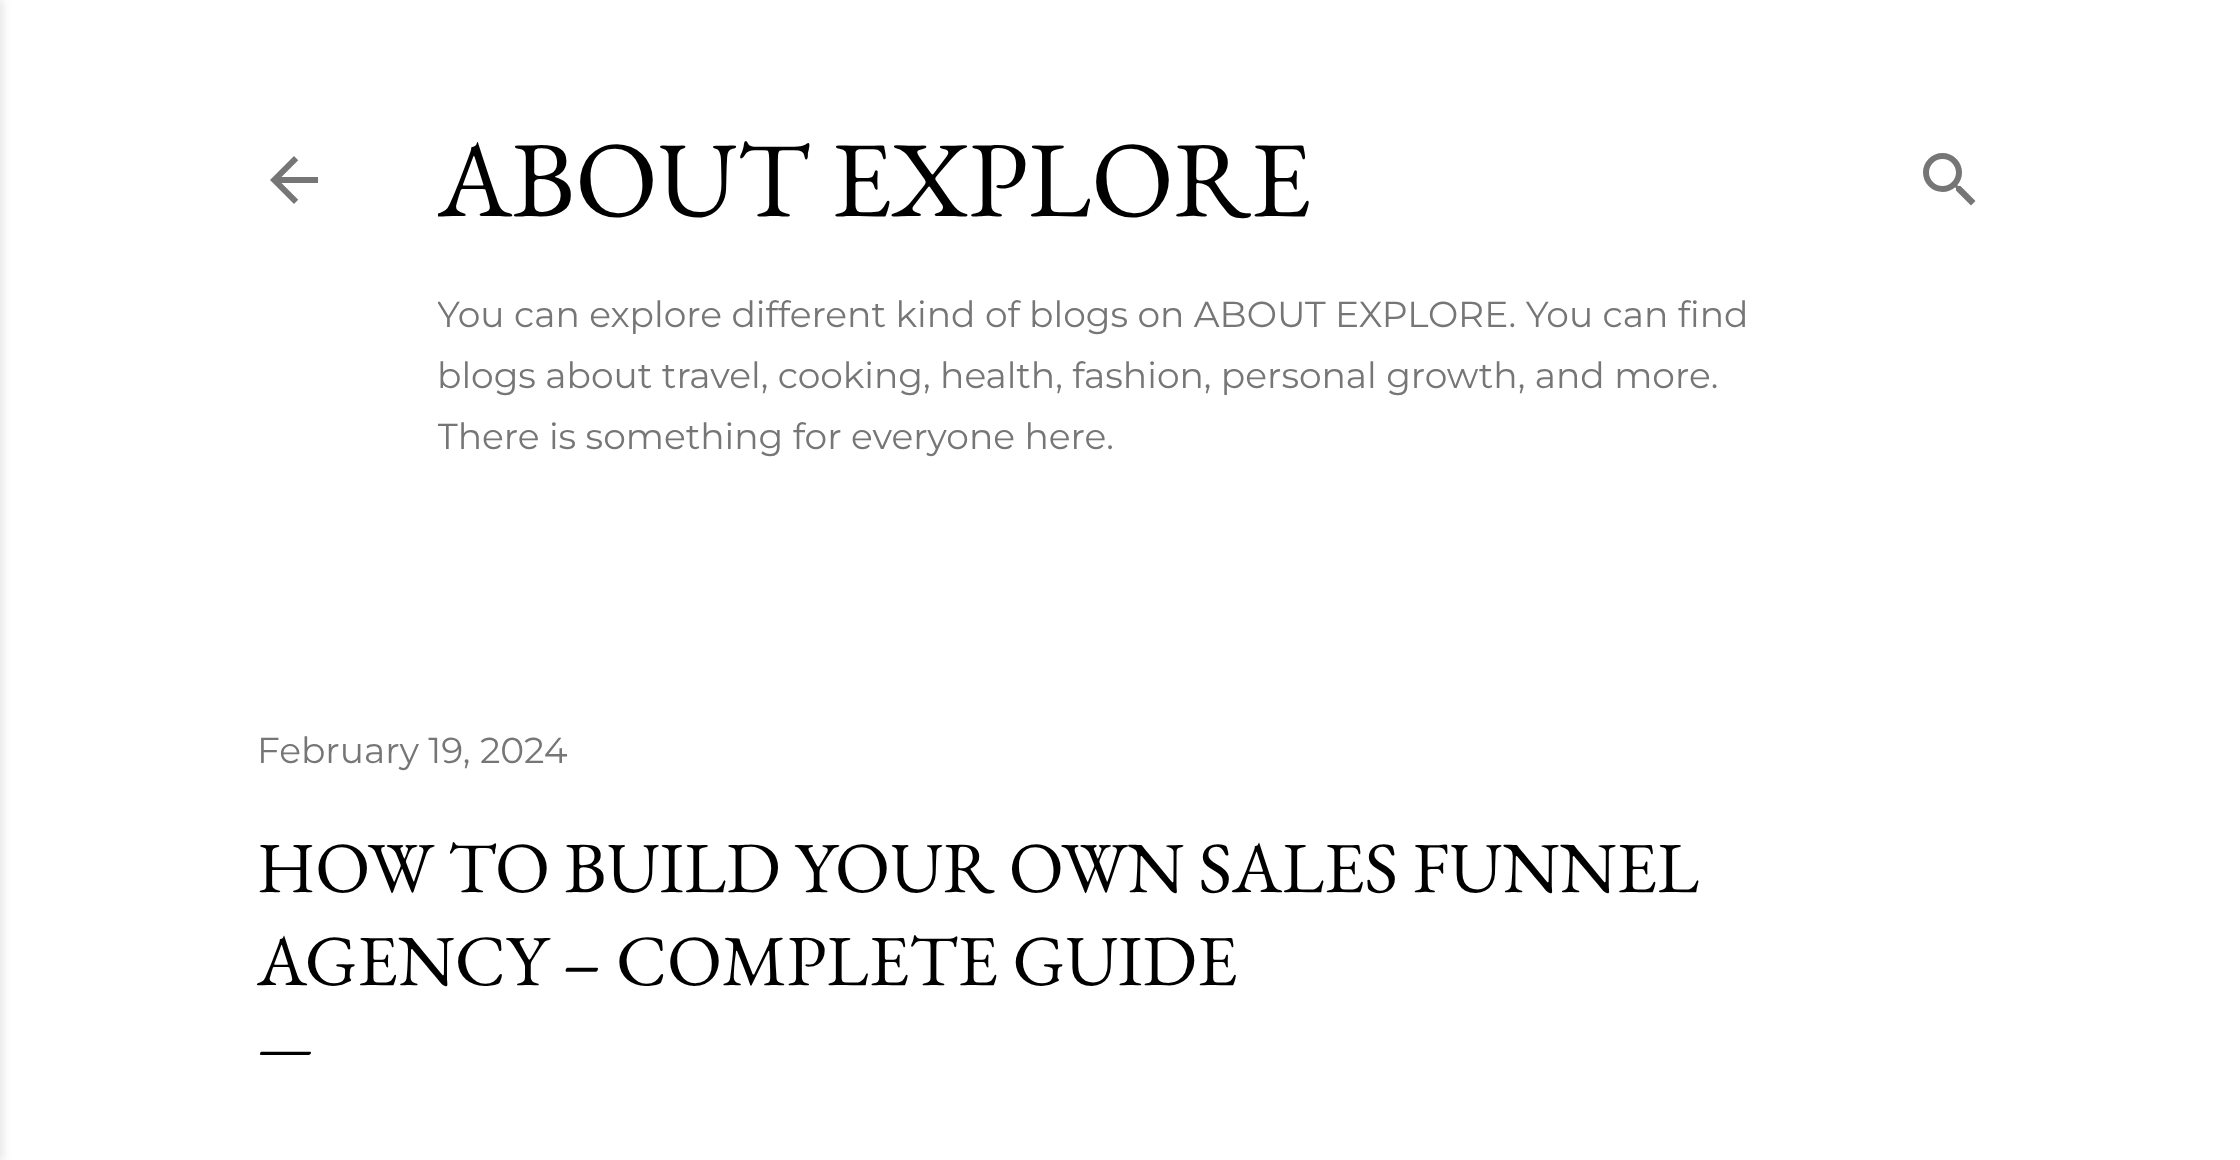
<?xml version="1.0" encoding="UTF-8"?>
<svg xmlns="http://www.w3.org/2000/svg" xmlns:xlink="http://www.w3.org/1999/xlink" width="2240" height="1160">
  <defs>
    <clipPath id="clip1"><rect x="438" y="108" width="1368" height="396" /></clipPath>
  </defs>
  <rect width="100%" height="100%" fill="#ffffff" />
  <rect x="-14" width="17" height="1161" fill="#000000" fill-opacity="0.1" filter="blur(4.5px)" />
  <image x="270" y="156" width="48" height="48" xlink:href="image1.png" />
  <image x="1923" y="153" width="53" height="53" xlink:href="image2.png" />
  <g clip-path="url(#clip1)">
    <text x="437" y="216" style="font-family: EB Garamond; font-size: 108px; fill: #000000">ABOUT EXPLORE</text>
    <text x="437" y="327" style="font-family: Montserrat; font-size: 36px; fill: #767676">You can explore different kind of blogs on ABOUT EXPLORE. You can find</text>
  </g>
  <text x="437" y="388" style="font-family: Montserrat; font-size: 36px; fill: #767676">blogs about travel, cooking, health, fashion, personal growth, and more.</text>
  <g clip-path="url(#clip1)">
    <text x="437" y="449" style="font-family: Montserrat; font-size: 36px; fill: #767676">There is something for everyone here.</text>
  </g>
  <text x="257" y="763" style="font-family: Montserrat; font-size: 36px; fill: #767676">February 19, 2024</text>
  <text x="257" y="892" style="font-family: EB Garamond; font-size: 72px; fill: #000000">HOW TO BUILD YOUR OWN SALES FUNNEL</text>
  <text x="257" y="985" style="font-family: EB Garamond; font-size: 72px; fill: #000000">AGENCY – COMPLETE GUIDE</text>
  <text x="257" y="1066" style="font-family: EB Garamond; font-size: 60px; fill: #000000">—</text>
</svg>
